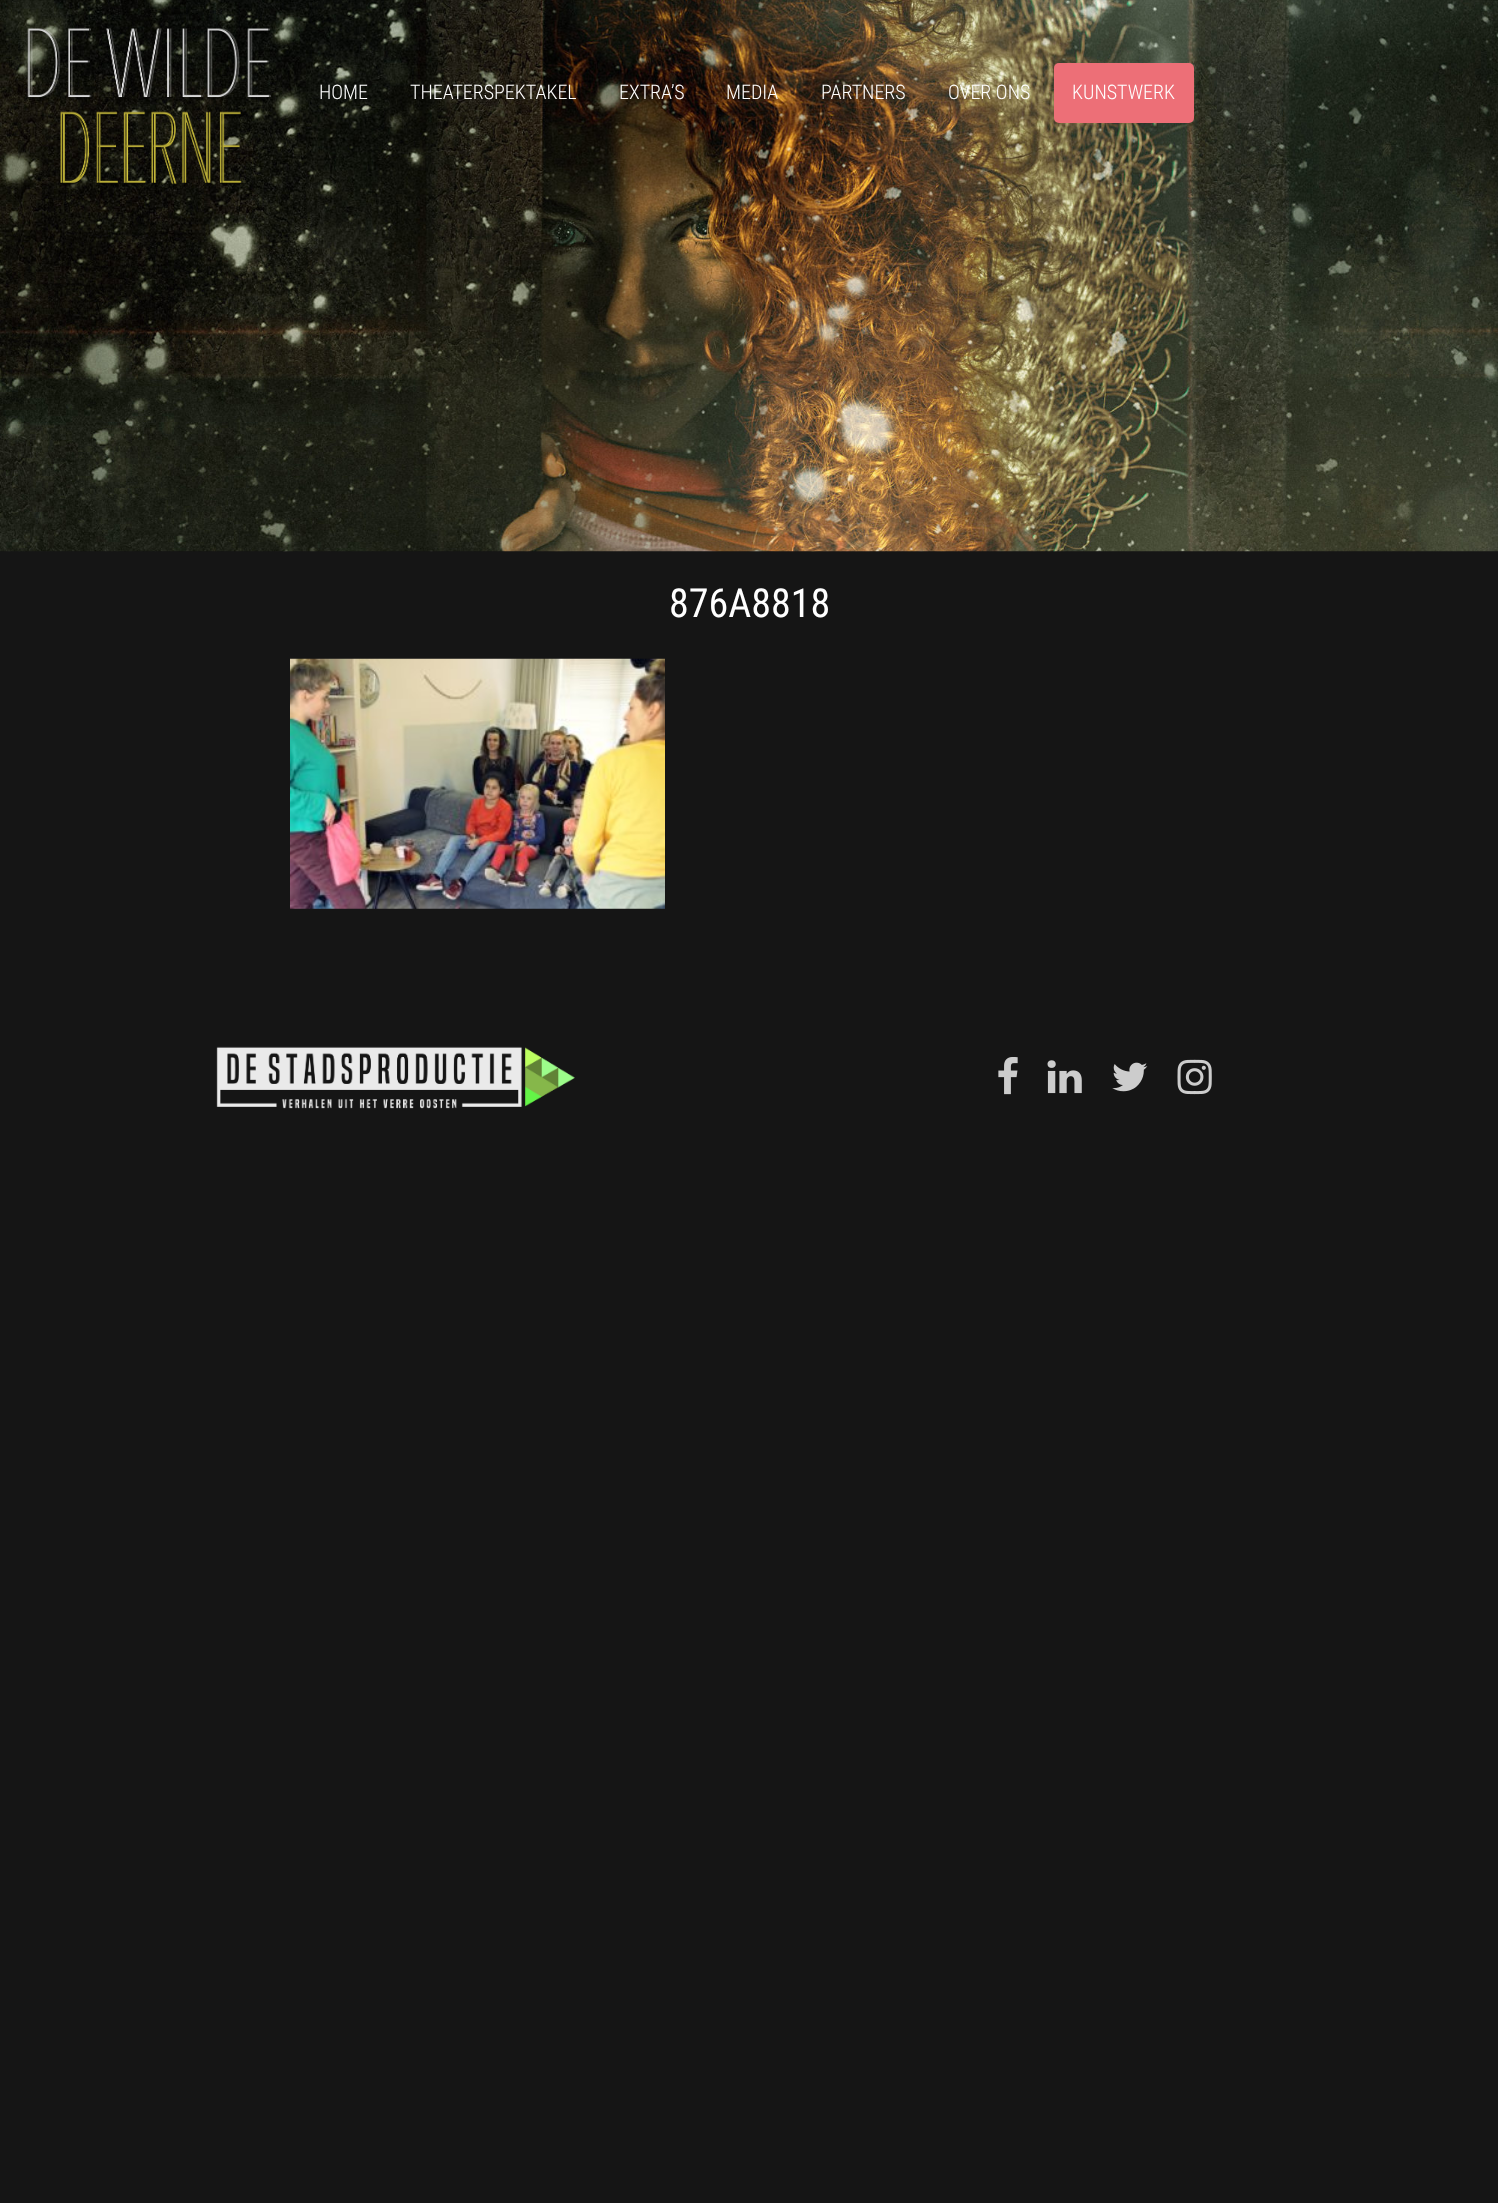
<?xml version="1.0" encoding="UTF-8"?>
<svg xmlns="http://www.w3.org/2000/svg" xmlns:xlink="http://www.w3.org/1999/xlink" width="1498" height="2203">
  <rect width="100%" height="100%" fill="#151515" />
  <image x="0" y="0" width="1498" height="552" xlink:href="image1.png" />
  <image x="26" y="28" width="245" height="158" xlink:href="image2.png" />
  <rect x="1054" y="63" width="140" height="60" rx="5" fill="#ed6f77" />
  <image x="290" y="658" width="375" height="251" xlink:href="image3.png" />
  <image x="216" y="1046" width="359" height="63" xlink:href="image4.png" />
  <image x="998" y="1057" width="20" height="38" xlink:href="image5.png" />
  <image x="1047" y="1060" width="35" height="34" xlink:href="image6.png" />
  <image x="1112" y="1062" width="36" height="30" xlink:href="image7.png" />
  <image x="1177" y="1059" width="35" height="36" xlink:href="image8.png" />
  <text x="319" y="99" style="font-family: Roboto Condensed; font-size: 20px; font-weight: 300; fill: #ffffff">HOME</text>
  <text x="410" y="99" style="font-family: Roboto Condensed; font-size: 20px; font-weight: 300; fill: #ffffff">THEATERSPEKTAKEL</text>
  <text x="619" y="99" style="font-family: Roboto Condensed; font-size: 20px; font-weight: 300; fill: #ffffff">EXTRA’S</text>
  <text x="726" y="99" style="font-family: Roboto Condensed; font-size: 20px; font-weight: 300; fill: #ffffff">MEDIA</text>
  <text x="821" y="99" style="font-family: Roboto Condensed; font-size: 20px; font-weight: 300; fill: #ffffff">PARTNERS</text>
  <text x="948" y="99" style="font-family: Roboto Condensed; font-size: 20px; font-weight: 300; fill: #ffffff">OVER ONS</text>
  <text x="1072" y="99" style="font-family: Roboto Condensed; font-size: 20px; font-weight: 300; fill: #ffffff">KUNSTWERK</text>
  <text x="669" y="617" style="font-family: Roboto Condensed; font-size: 40px; fill: #ffffff">876A8818</text>
</svg>
